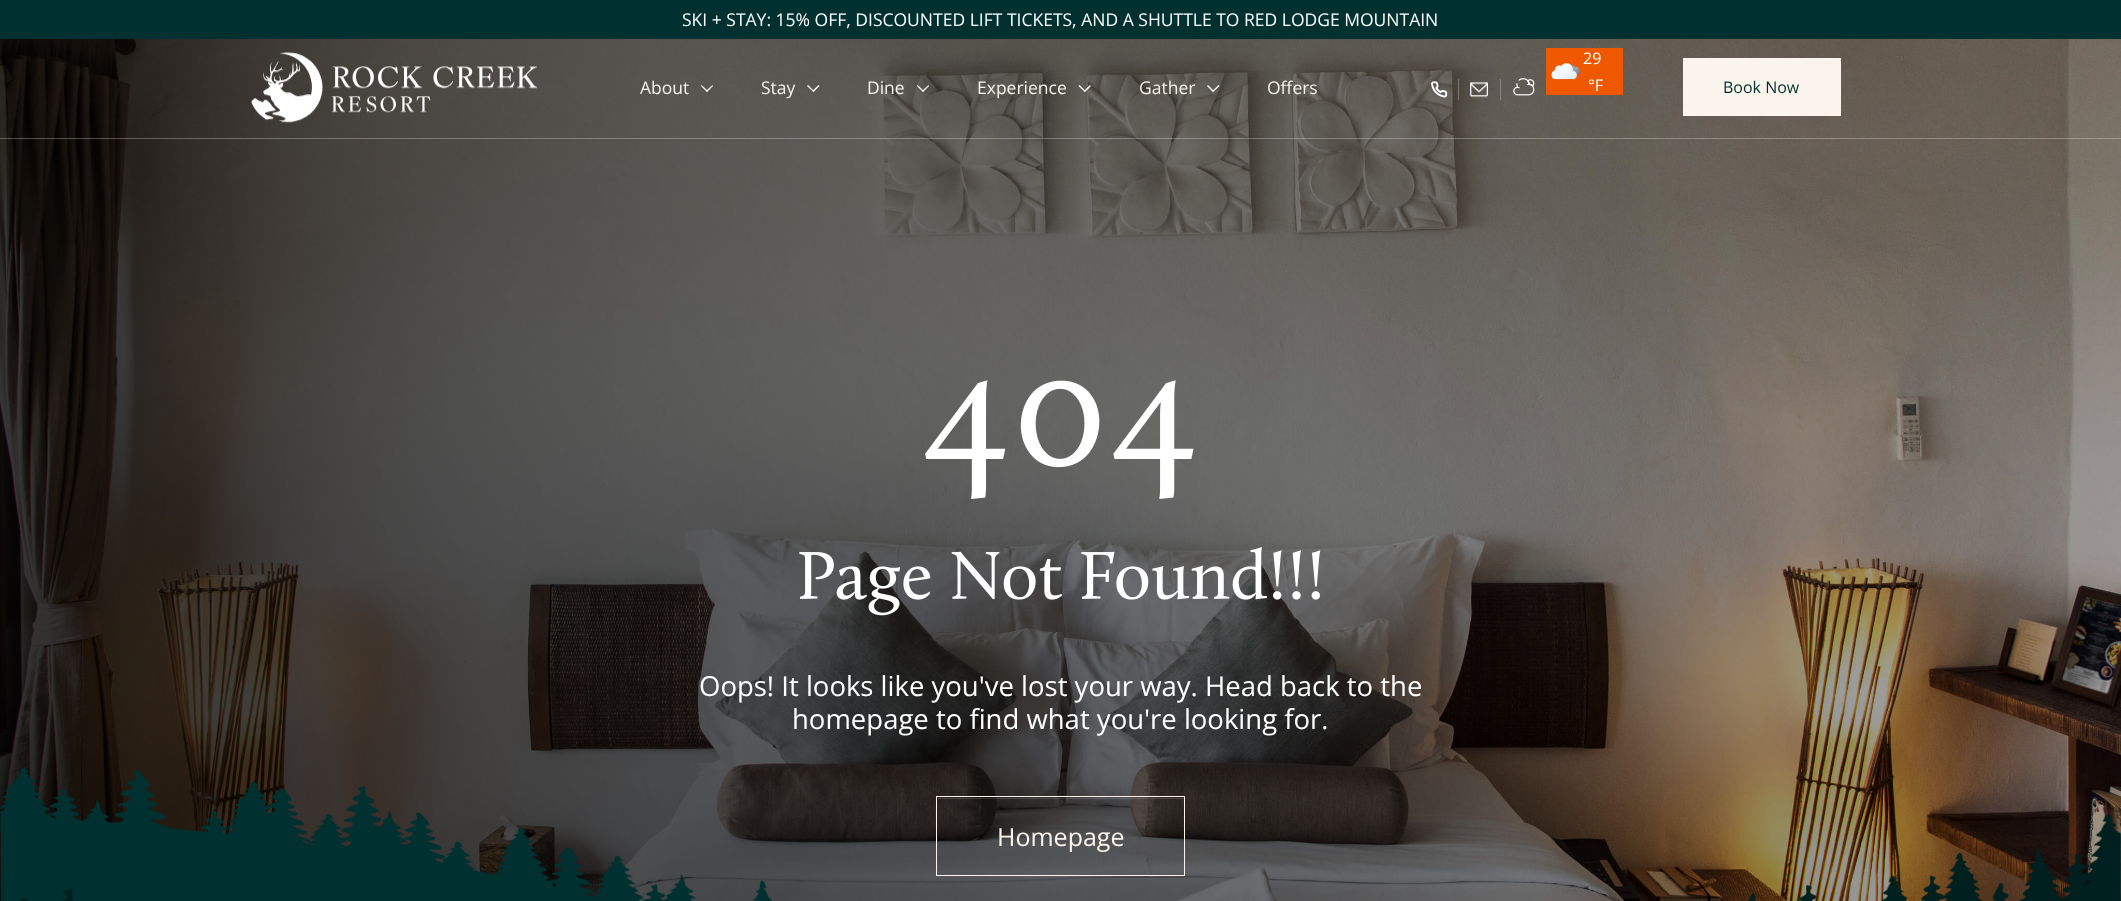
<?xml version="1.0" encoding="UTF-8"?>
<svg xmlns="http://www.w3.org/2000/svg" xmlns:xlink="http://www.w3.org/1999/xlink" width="2121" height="901">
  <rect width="100%" height="100%" fill="#ffffff" />
  <rect width="2121" height="39" fill="#013030" />
  <image x="0" y="39" width="2121" height="862" xlink:href="image6.png" />
  <rect y="138" width="2121" height="1" fill="#ffffff" fill-opacity="0.28" />
  <image x="251" y="52" width="287" height="71" xlink:href="image1.png" />
  <path d="M 712.5 85 l 0.5 1 l -6 6 l -1 -1 z" fill="#ffffff" />
  <path d="M 701.5 85 l 6.5 6 l -1 1 l -6 -6 z" fill="#ffffff" />
  <path d="M 818.5 85 l 1 1 l -6 6 l -1 -1 z" fill="#ffffff" />
  <path d="M 808 85 l 6 6 l -0.5 1 l -6.5 -6 z" fill="#ffffff" />
  <path d="M 928.5 85 l 0.5 1 l -6 6 l -1 -1 z" fill="#ffffff" />
  <path d="M 917.5 85 l 6.5 6 l -1 1 l -6 -6 z" fill="#ffffff" />
  <path d="M 1090 85 l 1 1 l -6 6 l -1 -1 z" fill="#ffffff" />
  <path d="M 1079.5 85 l 6 6 l -0.5 1 l -6.5 -6 z" fill="#ffffff" />
  <path d="M 1218.5 85 l 1 1 l -6.5 6 l -0.5 -1 z" fill="#ffffff" />
  <path d="M 1208 85 l 6 6 l -1 1 l -6 -6 z" fill="#ffffff" />
  <image x="1431" y="81" width="17" height="17" xlink:href="image2.png" />
  <rect x="1458" y="79" width="1" height="21" fill="#ffffff" fill-opacity="0.26" />
  <image x="1470" y="82" width="18" height="16" xlink:href="image3.png" />
  <rect x="1500" y="79" width="1" height="21" fill="#ffffff" fill-opacity="0.26" />
  <image x="1513" y="78" width="22" height="18" xlink:href="image4.png" />
  <rect x="1546" y="48" width="77" height="47" fill="#f05800" />
  <image x="1551" y="63" width="30" height="17" xlink:href="image5.png" />
  <rect x="1683" y="58" width="158" height="58" fill="#faf4ed" />
  <rect x="1684" y="59" width="156" height="1" fill="#fbf6f0" />
  <image x="925" y="380" width="269" height="119" xlink:href="image7.png" />
  <image x="799" y="547" width="522" height="69" xlink:href="image8.png" />
  <image x="0" y="767" width="2121" height="134" xlink:href="image9.png" />
  <rect x="938" y="798" width="246" height="1" fill="#ffffff" fill-opacity="0.15" />
  <rect x="936.5" y="796.5" width="248" height="79" fill="none" stroke="#faf4ed" />
  <text x="682" y="26" style="font-family: Open Sans; font-size: 17.5px; fill: #ffffff">SKI + STAY: 15% OFF, DISCOUNTED LIFT TICKETS, AND A SHUTTLE TO RED LODGE MOUNTAIN</text>
  <text x="640" y="94" style="font-family: Open Sans; font-size: 17.5px; fill: #f4f1e9">About</text>
  <text x="761" y="94" style="font-family: Open Sans; font-size: 17.5px; fill: #f4f1e9">Stay</text>
  <text x="867" y="94" style="font-family: Open Sans; font-size: 17.5px; fill: #f4f1e9">Dine</text>
  <text x="977" y="94" style="font-family: Open Sans; font-size: 17.5px; fill: #f4f1e9">Experience</text>
  <text x="1139" y="94" style="font-family: Open Sans; font-size: 17.5px; fill: #f4f1e9">Gather</text>
  <text x="1267" y="94" style="font-family: Open Sans; font-size: 17.5px; fill: #f4f1e9">Offers</text>
  <text x="1583" y="64" style="font-family: Open Sans; font-size: 16px; fill: #ffffff">29</text>
  <text x="1588" y="91" style="font-family: Open Sans; font-size: 16px; fill: #ffffff">°F</text>
  <text x="1723" y="93" style="font-family: Open Sans; font-size: 16px; fill: #013030">Book Now</text>
  <text x="699" y="696" style="font-family: Open Sans; font-size: 27.5px; fill: #ffffff">Oops! It looks like you've lost your way. Head back to the</text>
  <text x="792" y="729" style="font-family: Open Sans; font-size: 27.5px; fill: #ffffff">homepage to find what you're looking for.</text>
  <text x="997" y="846" style="font-family: Open Sans; font-size: 25px; fill: #faf4ed">Homepage</text>
</svg>
